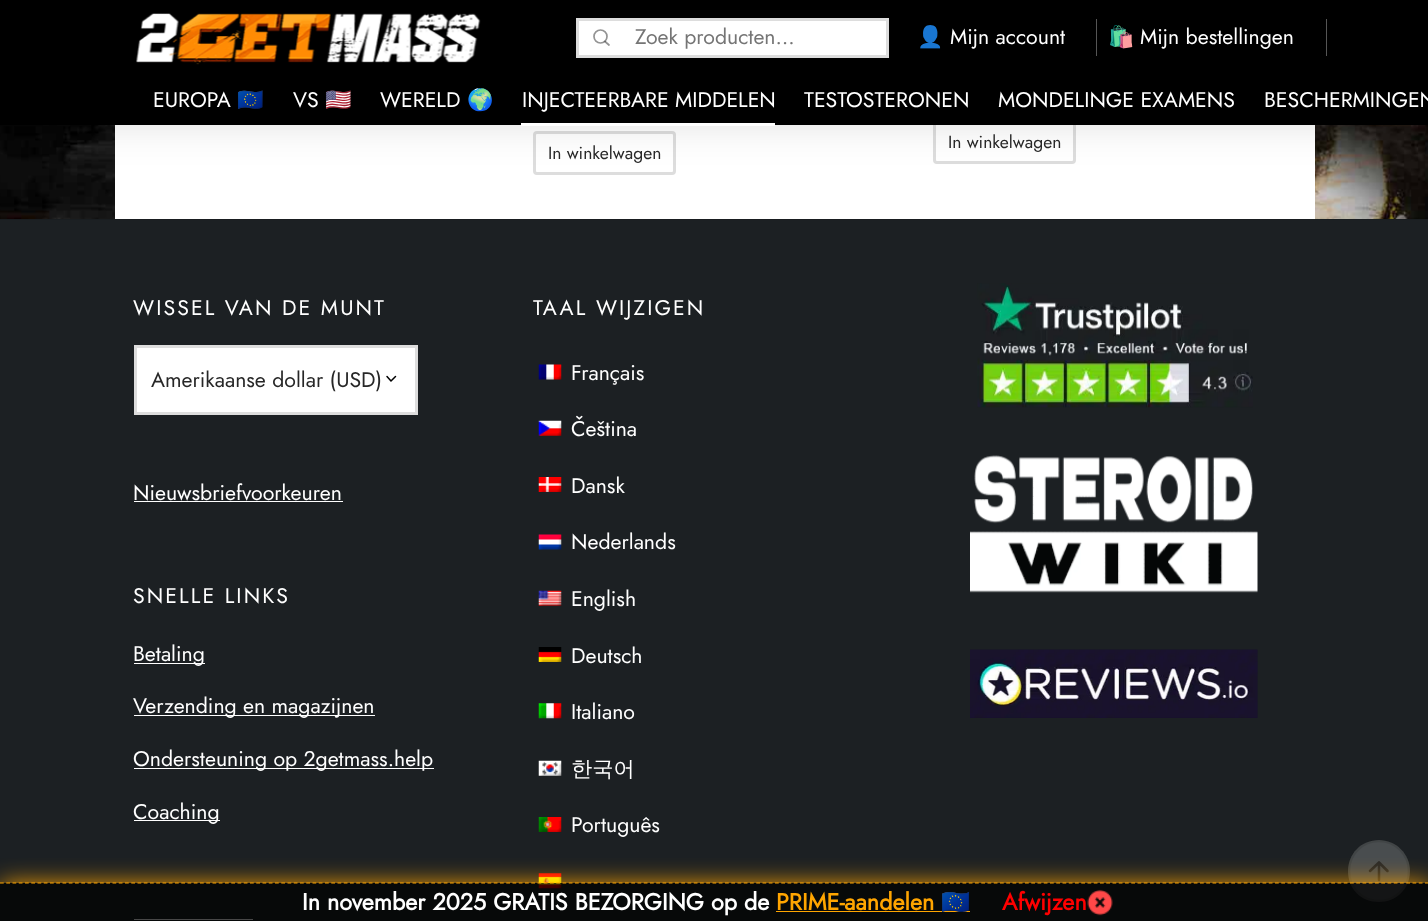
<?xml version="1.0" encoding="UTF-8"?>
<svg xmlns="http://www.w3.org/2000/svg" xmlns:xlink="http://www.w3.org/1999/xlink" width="1428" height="921">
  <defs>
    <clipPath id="clip1"><rect x="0" y="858" width="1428" height="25" /></clipPath>
  </defs>
  <rect width="100%" height="100%" fill="#ffffff" />
  <image x="0" y="125" width="1428" height="94" xlink:href="image1.png" />
  <rect x="115" y="125" width="1200" height="94" fill="#ffffff" />
  <rect x="934.5" y="121.5" width="140" height="41" rx="2.5" fill="none" stroke="#dddddd" stroke-width="3" />
  <rect x="534.5" y="132.5" width="140" height="41" rx="2.5" fill="none" stroke="#dddddd" stroke-width="3" />
  <rect x="23" y="28" width="1378" height="75" fill="#000000" fill-opacity="0.3" filter="blur(28px)" />
  <rect width="1428" height="125" fill="#000000" />
  <image x="136" y="13" width="345" height="52" xlink:href="image2.png" />
  <rect x="577.5" y="19.5" width="310" height="37" fill="#ffffff" stroke="#dddddd" stroke-width="3" />
  <circle cx="600.5" cy="36.5" r="6.5" fill="none" stroke="#949494" stroke-width="1.7" />
  <path d="M 609 45 l -4 -3.5" fill="none" stroke="#282828" stroke-opacity="0.5" stroke-width="1.7" stroke-linecap="round" stroke-linejoin="round" />
  <rect x="1096" y="19" width="1" height="37" fill="#555555" />
  <rect x="1326" y="19" width="1" height="37" fill="#555555" />
  <rect x="521" y="123" width="254" height="3" fill="#ffffff" />
  <rect y="220" width="1428" height="701" fill="#1c2023" />
  <rect y="219" width="1428" height="1" fill="#191d20" />
  <rect x="137" y="348" width="278" height="64" fill="#ffffff" />
  <path d="M 387 376.5 l 4 4.5 l 4.5 -4.5" fill="none" stroke="#000000" stroke-width="1.5" stroke-linecap="round" stroke-linejoin="round" />
  <rect x="135.5" y="346.5" width="281" height="67" fill="none" stroke="#dddddd" stroke-width="3" />
  <rect x="134" y="501" width="209" height="1" fill="#ffffff" />
  <rect x="134" y="663" width="71" height="1" fill="#ffffff" />
  <rect x="134" y="715" width="241" height="1" fill="#ffffff" />
  <rect x="134" y="768" width="300" height="1" fill="#ffffff" />
  <rect x="134" y="820" width="86" height="1" fill="#ffffff" />
  <rect x="134" y="919" width="119" height="1" fill="#ffffff" />
  <image x="538" y="364" width="24" height="16" xlink:href="image3.png" />
  <image x="538" y="420" width="24" height="16" xlink:href="image4.png" />
  <image x="538" y="477" width="24" height="15" xlink:href="image5.png" />
  <image x="538" y="534" width="24" height="16" xlink:href="image6.png" />
  <image x="538" y="590" width="24" height="16" xlink:href="image7.png" />
  <image x="538" y="647" width="24" height="15" xlink:href="image8.png" />
  <image x="538" y="703" width="24" height="16" xlink:href="image9.png" />
  <image x="538" y="760" width="24" height="16" xlink:href="image10.png" />
  <image x="538" y="817" width="24" height="15" xlink:href="image11.png" />
  <image x="538" y="873" width="24" height="16" xlink:href="image12.png" />
  <image x="977" y="283" width="276" height="125" xlink:href="image13.png" />
  <image x="970" y="455" width="288" height="138" xlink:href="image14.png" />
  <image x="970" y="649" width="288" height="69" xlink:href="image15.png" />
  <path d="M 1348 871 c 0 -17 13 -31 31 -31 c 17 0 31 14 31 31 c 0 18 -14 31 -31 31 c -18 0 -31 -13 -31 -31 z" fill="#494d4f" />
  <path d="M 1349 871 c 0 -16.5 13 -30 30 -30 c 16.5 0 30 13.5 30 30 c 0 17 -13.5 30 -30 30 c -17 0 -30 -13 -30 -30 z" fill="none" stroke="#000000" stroke-opacity="0.1" stroke-width="2.5" />
  <path d="M 1379 880 v -17.5 m -9 8.5 l 9 -8.5 l 8.5 8.5" fill="none" stroke="#282828" stroke-width="2.5" stroke-linecap="round" stroke-linejoin="round" />
  <g clip-path="url(#clip1)">
    <rect x="1" y="884" width="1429" height="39" fill="#ffa500" filter="blur(12.5px)" />
  </g>
  <rect y="883" width="1428" height="38" fill="#000000" fill-opacity="0.72" />
  <path d="M 0 883 h 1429" fill="none" stroke="#ffa500" stroke-width="1.2" stroke-dasharray="3.75 2.5" />
  <rect x="776" y="911" width="194" height="1" fill="#ffa500" />
  <image x="1087" y="889" width="26" height="27" xlink:href="image16.png" />
  <text x="635" y="44" style="font-family: Jost; font-size: 21.25px; fill: #757575">Zoek producten…</text>
  <text x="917" y="44" style="font-family: Noto Color Emoji; font-size: 21.25px; fill: #ffffff">👤</text>
  <text x="950" y="44" style="font-family: Jost; font-size: 21.25px; fill: #ffffff">Mijn account</text>
  <text x="1108" y="44" style="font-family: Noto Color Emoji; font-size: 21.25px; fill: #ffffff">🛍️</text>
  <text x="1140" y="44" style="font-family: Jost; font-size: 21.25px; fill: #ffffff">Mijn bestellingen</text>
  <text x="153" y="107" style="font-family: Jost; font-size: 21.25px; fill: #ffffff">EUROPA</text>
  <text x="237" y="107" style="font-family: Noto Color Emoji; font-size: 21.25px; fill: #ffffff">🇪🇺</text>
  <text x="293" y="107" style="font-family: Jost; font-size: 21.25px; fill: #ffffff">VS</text>
  <text x="325" y="107" style="font-family: Noto Color Emoji; font-size: 21.25px; fill: #ffffff">🇺🇸</text>
  <text x="380" y="107" style="font-family: Jost; font-size: 21.25px; fill: #ffffff">WERELD</text>
  <text x="467" y="107" style="font-family: Noto Color Emoji; font-size: 21.25px; fill: #ffffff">🌍</text>
  <text x="522" y="107" style="font-family: Jost; font-size: 21.25px; fill: #ffffff">INJECTEERBARE MIDDELEN</text>
  <text x="804" y="107" style="font-family: Jost; font-size: 21.25px; fill: #ffffff">TESTOSTERONEN</text>
  <text x="998" y="107" style="font-family: Jost; font-size: 21.25px; fill: #ffffff">MONDELINGE EXAMENS</text>
  <text x="1264" y="107" style="font-family: Jost; font-size: 21.25px; fill: #ffffff">BESCHERMINGEN</text>
  <text x="948" y="148" style="font-family: Jost; font-size: 17.5px; fill: #272727">In winkelwagen</text>
  <text x="548" y="159" style="font-family: Jost; font-size: 17.5px; fill: #272727">In winkelwagen</text>
  <text x="133" y="315" style="font-family: Jost; font-size: 21.25px; letter-spacing: 2.1px; fill: #ffffff">WISSEL VAN DE MUNT</text>
  <text x="151" y="387" style="font-family: Jost; font-size: 21.25px; fill: #272727">Amerikaanse dollar (USD)</text>
  <text x="133" y="500" style="font-family: Jost; font-size: 21.25px; fill: #ffffff">Nieuwsbriefvoorkeuren</text>
  <text x="133" y="603" style="font-family: Jost; font-size: 21.25px; letter-spacing: 2.1px; fill: #ffffff">SNELLE LINKS</text>
  <text x="133" y="661" style="font-family: Jost; font-size: 21.25px; fill: #ffffff">Betaling</text>
  <text x="133" y="713" style="font-family: Jost; font-size: 21.25px; fill: #ffffff">Verzending en magazijnen</text>
  <text x="133" y="766" style="font-family: Jost; font-size: 21.25px; fill: #ffffff">Ondersteuning op 2getmass.help</text>
  <text x="133" y="819" style="font-family: Jost; font-size: 21.25px; fill: #ffffff">Coaching</text>
  <text x="533" y="315" style="font-family: Jost; font-size: 21.25px; letter-spacing: 2.1px; fill: #ffffff">TAAL WIJZIGEN</text>
  <text x="571" y="380" style="font-family: Jost; font-size: 21.25px; fill: #ffffff">Français</text>
  <text x="571" y="436" style="font-family: Jost; font-size: 21.25px; fill: #ffffff">Čeština</text>
  <text x="571" y="493" style="font-family: Jost; font-size: 21.25px; fill: #ffffff">Dansk</text>
  <text x="571" y="549" style="font-family: Jost; font-size: 21.25px; fill: #ffffff">Nederlands</text>
  <text x="571" y="606" style="font-family: Jost; font-size: 21.25px; fill: #ffffff">English</text>
  <text x="571" y="663" style="font-family: Jost; font-size: 21.25px; fill: #ffffff">Deutsch</text>
  <text x="571" y="719" style="font-family: Jost; font-size: 21.25px; fill: #ffffff">Italiano</text>
  <text x="571" y="776" style="font-family: WenQuanYi Zen Hei; font-size: 21.25px; font-weight: 500; fill: #ffffff">한국어</text>
  <text x="571" y="832" style="font-family: Jost; font-size: 21.25px; fill: #ffffff">Português</text>
  <text x="302" y="910" style="font-family: Jost; font-size: 23.4px; font-weight: bold; fill: #ffffff">In november 2025 GRATIS BEZORGING op de</text>
  <text x="776" y="910" style="font-family: Jost; font-size: 23.4px; font-weight: bold; fill: #ffa500">PRIME-aandelen</text>
  <text x="941" y="910" style="font-family: Noto Color Emoji; font-size: 23.4px; font-weight: bold; fill: #ffa500">🇪🇺</text>
  <text x="1002" y="910" style="font-family: Jost; font-size: 23.4px; font-weight: bold; fill: #ff0000">Afwijzen</text>
</svg>
